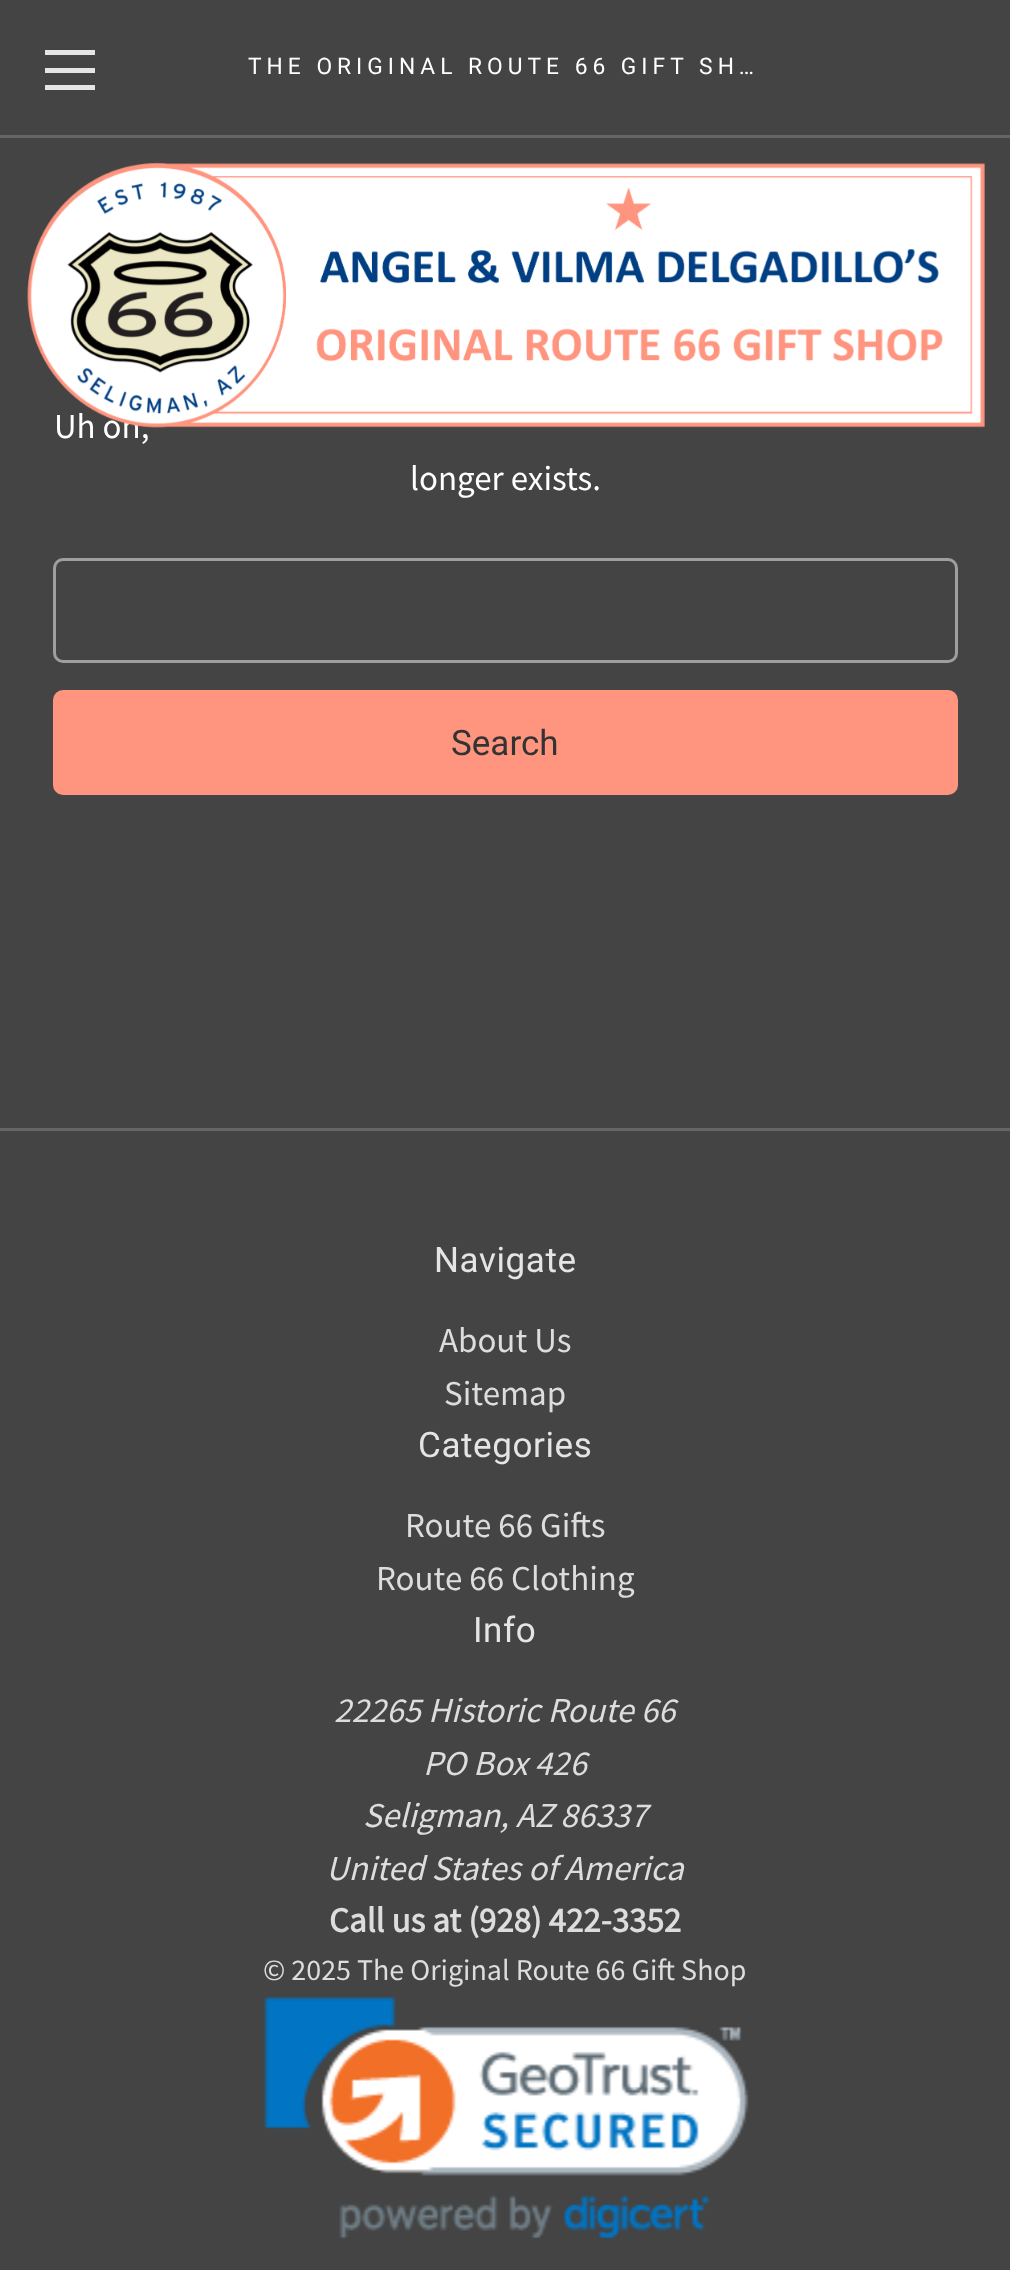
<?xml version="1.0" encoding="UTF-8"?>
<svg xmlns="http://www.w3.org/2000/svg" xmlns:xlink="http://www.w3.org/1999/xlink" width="1010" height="2270">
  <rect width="100%" height="100%" fill="#444444" />
  <rect y="135" width="1010" height="3" fill="#666666" />
  <rect x="45" y="68" width="50" height="5" fill="#e5e5e5" />
  <rect x="45" y="50" width="50" height="5" fill="#e5e5e5" />
  <rect x="45" y="85" width="50" height="5" fill="#e5e5e5" />
  <rect x="54.5" y="559.5" width="902" height="102" rx="8.5" fill="none" stroke="#9f9f9f" stroke-width="3" />
  <rect x="54.5" y="691.5" width="902" height="102" rx="8.5" fill="#ff957f" stroke="#ff957f" stroke-width="3" />
  <rect y="1128" width="1010" height="3" fill="#666666" />
  <image x="264" y="1996" width="485" height="243" xlink:href="image2.png" />
  <text x="248" y="74" style="font-family: Roboto; font-size: 22.75px; letter-spacing: 5px; fill: #ffffff">THE ORIGINAL ROUTE 66 GIFT SH…</text>
  <text x="54" y="438" style="font-family: Source Sans Pro; font-size: 35px; fill: #ffffff">Uh oh,</text>
  <image x="27" y="162" width="958" height="266" xlink:href="image1.png" />
  <text x="410" y="490" style="font-family: Source Sans Pro; font-size: 35px; fill: #ffffff">longer exists.</text>
  <text x="451" y="755" style="font-family: Roboto; font-size: 35px; fill: #333333">Search</text>
  <text x="434" y="1272" style="font-family: Roboto; font-size: 35px; letter-spacing: 0.6px; fill: #e5e5e5">Navigate</text>
  <text x="439" y="1352" style="font-family: Source Sans Pro; font-size: 35px; fill: #dddddd">About Us</text>
  <text x="444" y="1405" style="font-family: Source Sans Pro; font-size: 35px; fill: #dddddd">Sitemap</text>
  <text x="418" y="1457" style="font-family: Roboto; font-size: 35px; letter-spacing: 0.6px; fill: #e5e5e5">Categories</text>
  <text x="405" y="1537" style="font-family: Source Sans Pro; font-size: 35px; fill: #dddddd">Route 66 Gifts</text>
  <text x="376" y="1590" style="font-family: Source Sans Pro; font-size: 35px; fill: #dddddd">Route 66 Clothing</text>
  <text x="473" y="1642" style="font-family: Roboto; font-size: 35px; letter-spacing: 0.6px; fill: #e5e5e5">Info</text>
  <text x="334" y="1722" style="font-family: Source Sans Pro; font-size: 35px; font-style: italic; fill: #dddddd">22265 Historic Route 66</text>
  <text x="423" y="1775" style="font-family: Source Sans Pro; font-size: 35px; font-style: italic; fill: #dddddd">PO Box 426</text>
  <text x="363" y="1827" style="font-family: Source Sans Pro; font-size: 35px; font-style: italic; fill: #dddddd">Seligman, AZ 86337</text>
  <text x="326" y="1880" style="font-family: Source Sans Pro; font-size: 35px; font-style: italic; fill: #dddddd">United States of America</text>
  <text x="329" y="1932" style="font-family: Source Sans Pro; font-size: 35px; font-weight: bold; fill: #dddddd">Call us at (928) 422-3352</text>
  <text x="263" y="1980" style="font-family: Source Sans Pro; font-size: 30px; fill: #dddddd">© 2025 The Original Route 66 Gift Shop</text>
</svg>
